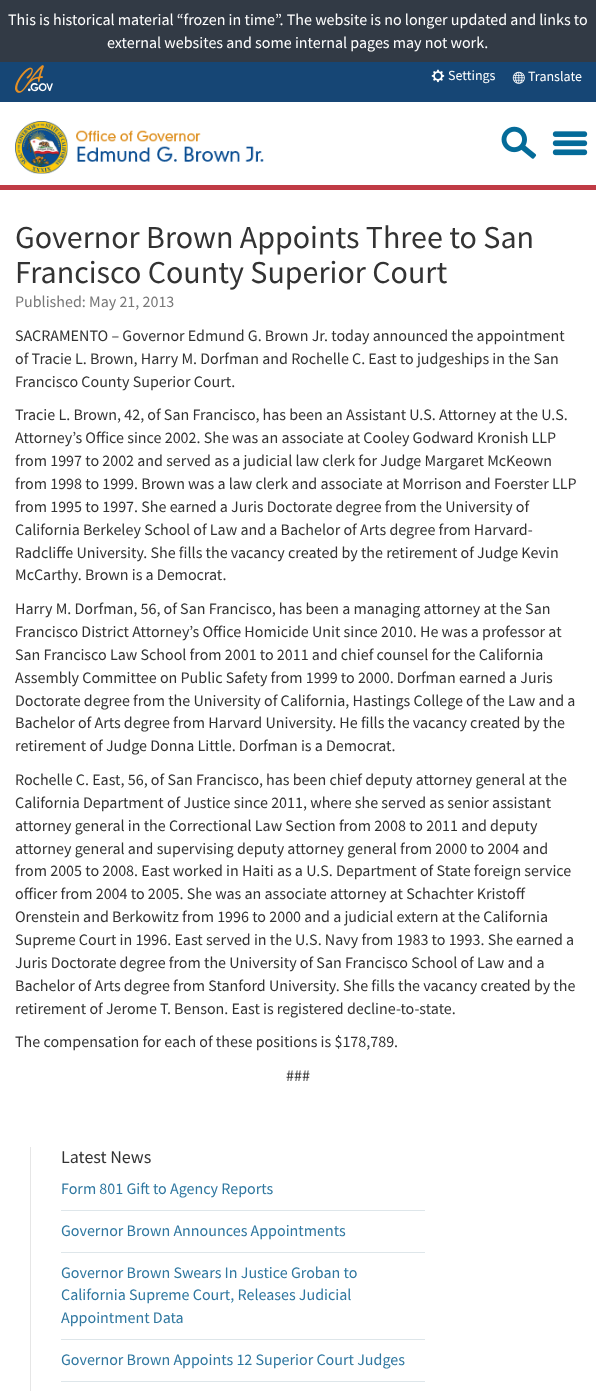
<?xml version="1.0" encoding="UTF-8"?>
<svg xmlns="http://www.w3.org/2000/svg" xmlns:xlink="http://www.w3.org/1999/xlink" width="596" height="1391">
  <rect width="100%" height="100%" fill="#ffffff" />
  <rect width="596" height="62" fill="#323a45" />
  <rect y="62" width="596" height="40" fill="#164675" />
  <image x="15" y="65" width="38" height="28" xlink:href="image1.png" />
  <image x="431" y="69" width="14" height="14" xlink:href="image2.png" />
  <image x="512" y="71" width="13" height="13" xlink:href="image3.png" />
  <image x="15" y="121" width="249" height="53" xlink:href="image4.png" />
  <image x="501" y="126" width="36" height="33" xlink:href="image5.png" />
  <image x="552" y="131" width="36" height="25" xlink:href="image6.png" />
  <rect y="185" width="596" height="5" fill="#c03b45" />
  <rect x="30" y="1147" width="1" height="244" fill="#e6e6e6" />
  <rect x="61" y="1210" width="364" height="1" fill="#dee6ea" />
  <rect x="61" y="1252" width="364" height="1" fill="#dee6ea" />
  <rect x="61" y="1339" width="364" height="1" fill="#dee6ea" />
  <rect x="61" y="1381" width="364" height="1" fill="#dee6ea" />
  <text x="8" y="25" style="font-family: Source Sans Pro; font-size: 16px; fill: #ffffff">This is historical material “frozen in time”. The website is no longer updated and links to</text>
  <text x="107" y="48" style="font-family: Source Sans Pro; font-size: 16px; fill: #ffffff">external websites and some internal pages may not work.</text>
  <text x="448" y="80" style="font-family: Source Sans Pro; font-size: 14px; fill: #ffffff">Settings</text>
  <text x="528" y="81" style="font-family: Source Sans Pro; font-size: 14px; fill: #ffffff">Translate</text>
  <text x="15" y="248" style="font-family: Source Sans Pro; font-size: 32px; fill: #333333">Governor Brown Appoints Three to San</text>
  <text x="15" y="283" style="font-family: Source Sans Pro; font-size: 32px; fill: #333333">Francisco County Superior Court</text>
  <text x="15" y="307" style="font-family: Source Sans Pro; font-size: 16px; fill: #777777">Published: May 21, 2013</text>
  <text x="15" y="341" style="font-family: Source Sans Pro; font-size: 16px; fill: #333333">SACRAMENTO – Governor Edmund G. Brown Jr. today announced the appointment</text>
  <text x="15" y="364" style="font-family: Source Sans Pro; font-size: 16px; fill: #333333">of Tracie L. Brown, Harry M. Dorfman and Rochelle C. East to judgeships in the San</text>
  <text x="15" y="387" style="font-family: Source Sans Pro; font-size: 16px; fill: #333333">Francisco County Superior Court.</text>
  <text x="15" y="420" style="font-family: Source Sans Pro; font-size: 16px; fill: #333333">Tracie L. Brown, 42, of San Francisco, has been an Assistant U.S. Attorney at the U.S.</text>
  <text x="15" y="443" style="font-family: Source Sans Pro; font-size: 16px; fill: #333333">Attorney’s Office since 2002. She was an associate at Cooley Godward Kronish LLP</text>
  <text x="15" y="466" style="font-family: Source Sans Pro; font-size: 16px; fill: #333333">from 1997 to 2002 and served as a judicial law clerk for Judge Margaret McKeown</text>
  <text x="15" y="489" style="font-family: Source Sans Pro; font-size: 16px; fill: #333333">from 1998 to 1999. Brown was a law clerk and associate at Morrison and Foerster LLP</text>
  <text x="15" y="512" style="font-family: Source Sans Pro; font-size: 16px; fill: #333333">from 1995 to 1997. She earned a Juris Doctorate degree from the University of</text>
  <text x="15" y="535" style="font-family: Source Sans Pro; font-size: 16px; fill: #333333">California Berkeley School of Law and a Bachelor of Arts degree from Harvard-</text>
  <text x="15" y="558" style="font-family: Source Sans Pro; font-size: 16px; fill: #333333">Radcliffe University. She fills the vacancy created by the retirement of Judge Kevin</text>
  <text x="15" y="580" style="font-family: Source Sans Pro; font-size: 16px; fill: #333333">McCarthy. Brown is a Democrat.</text>
  <text x="15" y="614" style="font-family: Source Sans Pro; font-size: 16px; fill: #333333">Harry M. Dorfman, 56, of San Francisco, has been a managing attorney at the San</text>
  <text x="15" y="637" style="font-family: Source Sans Pro; font-size: 16px; fill: #333333">Francisco District Attorney’s Office Homicide Unit since 2010. He was a professor at</text>
  <text x="15" y="660" style="font-family: Source Sans Pro; font-size: 16px; fill: #333333">San Francisco Law School from 2001 to 2011 and chief counsel for the California</text>
  <text x="15" y="683" style="font-family: Source Sans Pro; font-size: 16px; fill: #333333">Assembly Committee on Public Safety from 1999 to 2000. Dorfman earned a Juris</text>
  <text x="15" y="706" style="font-family: Source Sans Pro; font-size: 16px; fill: #333333">Doctorate degree from the University of California, Hastings College of the Law and a</text>
  <text x="15" y="728" style="font-family: Source Sans Pro; font-size: 16px; fill: #333333">Bachelor of Arts degree from Harvard University. He fills the vacancy created by the</text>
  <text x="15" y="751" style="font-family: Source Sans Pro; font-size: 16px; fill: #333333">retirement of Judge Donna Little. Dorfman is a Democrat.</text>
  <text x="15" y="785" style="font-family: Source Sans Pro; font-size: 16px; fill: #333333">Rochelle C. East, 56, of San Francisco, has been chief deputy attorney general at the</text>
  <text x="15" y="808" style="font-family: Source Sans Pro; font-size: 16px; fill: #333333">California Department of Justice since 2011, where she served as senior assistant</text>
  <text x="15" y="831" style="font-family: Source Sans Pro; font-size: 16px; fill: #333333">attorney general in the Correctional Law Section from 2008 to 2011 and deputy</text>
  <text x="15" y="854" style="font-family: Source Sans Pro; font-size: 16px; fill: #333333">attorney general and supervising deputy attorney general from 2000 to 2004 and</text>
  <text x="15" y="876" style="font-family: Source Sans Pro; font-size: 16px; fill: #333333">from 2005 to 2008. East worked in Haiti as a U.S. Department of State foreign service</text>
  <text x="15" y="899" style="font-family: Source Sans Pro; font-size: 16px; fill: #333333">officer from 2004 to 2005. She was an associate attorney at Schachter Kristoff</text>
  <text x="15" y="922" style="font-family: Source Sans Pro; font-size: 16px; fill: #333333">Orenstein and Berkowitz from 1996 to 2000 and a judicial extern at the California</text>
  <text x="15" y="945" style="font-family: Source Sans Pro; font-size: 16px; fill: #333333">Supreme Court in 1996. East served in the U.S. Navy from 1983 to 1993. She earned a</text>
  <text x="15" y="968" style="font-family: Source Sans Pro; font-size: 16px; fill: #333333">Juris Doctorate degree from the University of San Francisco School of Law and a</text>
  <text x="15" y="991" style="font-family: Source Sans Pro; font-size: 16px; fill: #333333">Bachelor of Arts degree from Stanford University. She fills the vacancy created by the</text>
  <text x="15" y="1014" style="font-family: Source Sans Pro; font-size: 16px; fill: #333333">retirement of Jerome T. Benson. East is registered decline-to-state.</text>
  <text x="15" y="1047" style="font-family: Source Sans Pro; font-size: 16px; fill: #333333">The compensation for each of these positions is $178,789.</text>
  <text x="286" y="1081" style="font-family: Source Sans Pro; font-size: 16px; fill: #333333">###</text>
  <text x="61" y="1163" style="font-family: Source Sans Pro; font-size: 18px; fill: #333333">Latest News</text>
  <text x="61" y="1194" style="font-family: Source Sans Pro; font-size: 16px; fill: #2f77a0">Form 801 Gift to Agency Reports</text>
  <text x="61" y="1236" style="font-family: Source Sans Pro; font-size: 16px; fill: #2f77a0">Governor Brown Announces Appointments</text>
  <text x="61" y="1278" style="font-family: Source Sans Pro; font-size: 16px; fill: #2f77a0">Governor Brown Swears In Justice Groban to</text>
  <text x="61" y="1300" style="font-family: Source Sans Pro; font-size: 16px; fill: #2f77a0">California Supreme Court, Releases Judicial</text>
  <text x="61" y="1323" style="font-family: Source Sans Pro; font-size: 16px; fill: #2f77a0">Appointment Data</text>
  <text x="61" y="1365" style="font-family: Source Sans Pro; font-size: 16px; fill: #2f77a0">Governor Brown Appoints 12 Superior Court Judges</text>
</svg>
